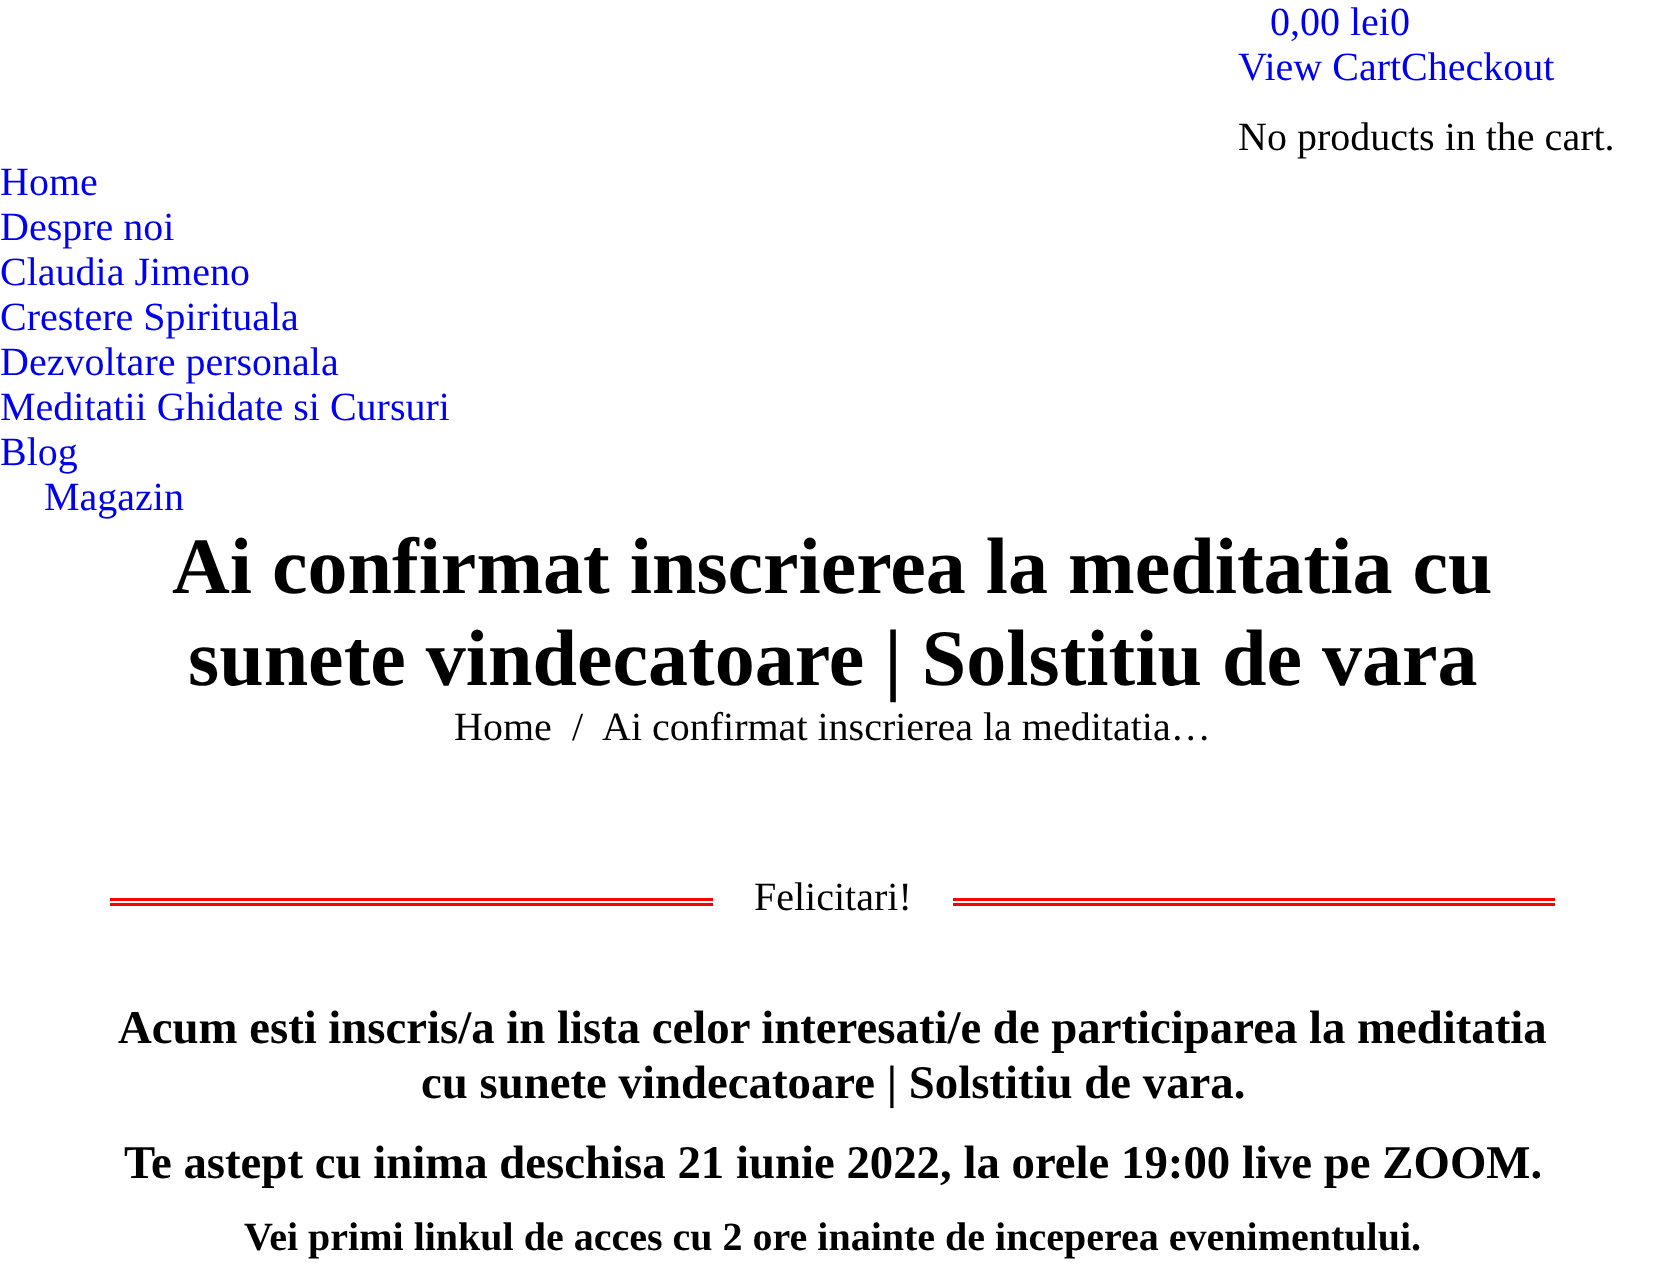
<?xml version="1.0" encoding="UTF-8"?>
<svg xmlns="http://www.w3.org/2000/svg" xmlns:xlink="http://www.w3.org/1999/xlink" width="1663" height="1287">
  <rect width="100%" height="100%" fill="#ffffff" />
  <rect x="110" y="898" width="603" height="3" fill="#ff0000" />
  <rect x="110" y="903" width="603" height="3" fill="#ff0000" />
  <rect x="953" y="898" width="602" height="3" fill="#ff0000" />
  <rect x="953" y="903" width="602" height="3" fill="#ff0000" />
  <text x="1270" y="35" style="font-family: Liberation Serif; font-size: 40px; fill: #0000ee">0,00 lei0</text>
  <text x="1238" y="80" style="font-family: Liberation Serif; font-size: 40px; fill: #0000ee">View CartCheckout</text>
  <text x="1238" y="150" style="font-family: Liberation Serif; font-size: 40px; fill: #000000">No products in the cart.</text>
  <text x="0" y="195" style="font-family: Liberation Serif; font-size: 40px; fill: #0000ee">Home</text>
  <text x="0" y="240" style="font-family: Liberation Serif; font-size: 40px; fill: #0000ee">Despre noi</text>
  <text x="0" y="285" style="font-family: Liberation Serif; font-size: 40px; fill: #0000ee">Claudia Jimeno</text>
  <text x="0" y="330" style="font-family: Liberation Serif; font-size: 40px; fill: #0000ee">Crestere Spirituala</text>
  <text x="0" y="375" style="font-family: Liberation Serif; font-size: 40px; fill: #0000ee">Dezvoltare personala</text>
  <text x="0" y="420" style="font-family: Liberation Serif; font-size: 40px; fill: #0000ee">Meditatii Ghidate si Cursuri</text>
  <text x="0" y="465" style="font-family: Liberation Serif; font-size: 40px; fill: #0000ee">Blog</text>
  <text x="44" y="510" style="font-family: Liberation Serif; font-size: 40px; fill: #0000ee">Magazin</text>
  <text x="172" y="593" style="font-family: Liberation Serif; font-size: 80px; font-weight: bold; fill: #000000">Ai confirmat inscrierea la meditatia cu</text>
  <text x="188" y="685" style="font-family: Liberation Serif; font-size: 80px; font-weight: bold; fill: #000000">sunete vindecatoare | Solstitiu de vara</text>
  <text x="454" y="740" style="font-family: Liberation Serif; font-size: 40px; fill: #000000">Home</text>
  <text x="572" y="740" style="font-family: Liberation Serif; font-size: 40px; fill: #000000">/</text>
  <text x="602" y="740" style="font-family: Liberation Serif; font-size: 40px; fill: #000000">Ai confirmat inscrierea la meditatia…</text>
  <text x="754" y="910" style="font-family: Liberation Serif; font-size: 40px; fill: #000000">Felicitari!</text>
  <text x="118" y="1043" word-spacing="-0.1" style="font-family: Liberation Serif; font-size: 46.8px; font-weight: bold; fill: #000000">Acum esti inscris/a in lista celor interesati/e de participarea la meditatia</text>
  <text x="421" y="1098" style="font-family: Liberation Serif; font-size: 46.8px; font-weight: bold; fill: #000000">cu sunete vindecatoare | Solstitiu de vara.</text>
  <text x="124" y="1178" style="font-family: Liberation Serif; font-size: 46.8px; font-weight: bold; fill: #000000">Te astept cu inima deschisa 21 iunie 2022, la orele 19:00 live pe ZOOM.</text>
  <text x="244" y="1250" style="font-family: Liberation Serif; font-size: 40px; font-weight: bold; fill: #000000">Vei primi linkul de acces cu 2 ore inainte de inceperea evenimentului.</text>
</svg>
